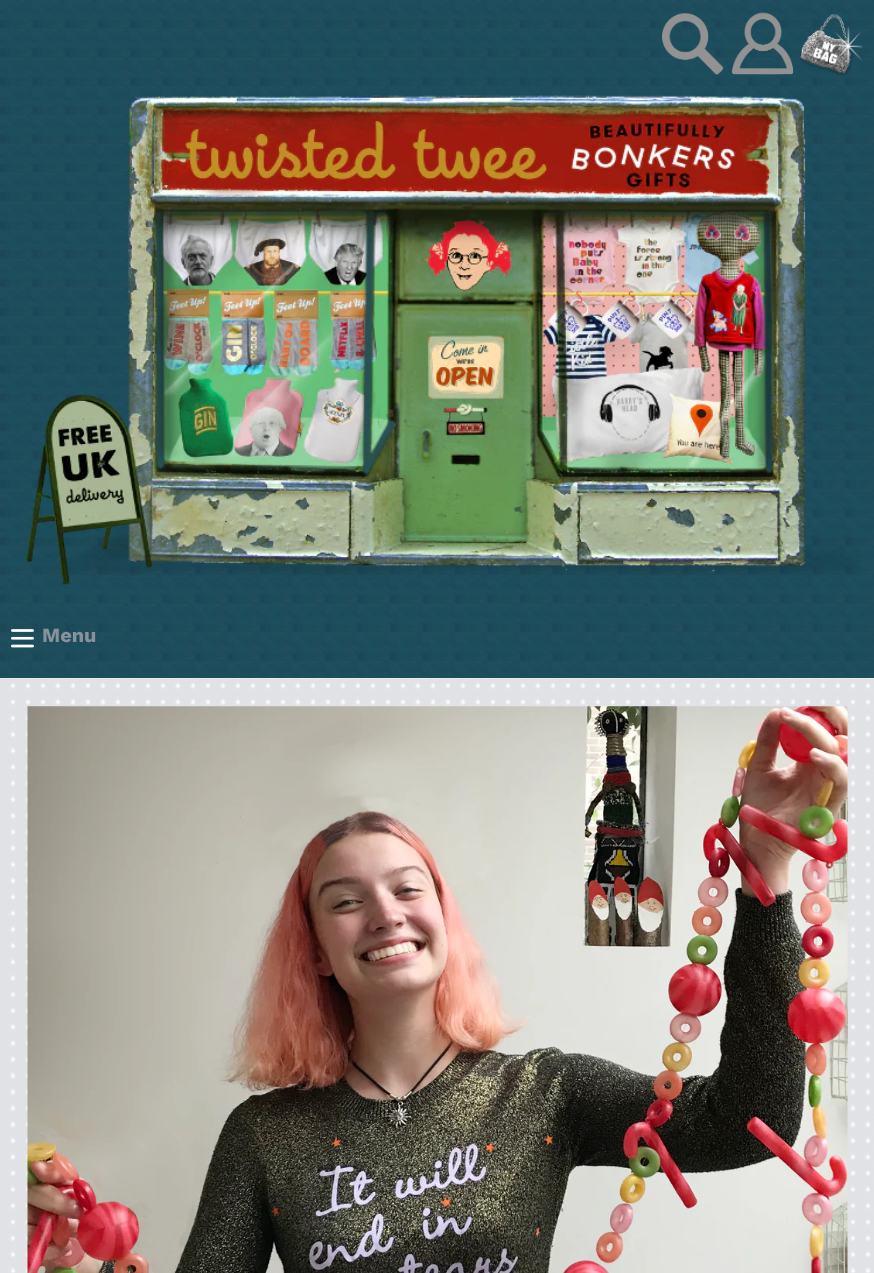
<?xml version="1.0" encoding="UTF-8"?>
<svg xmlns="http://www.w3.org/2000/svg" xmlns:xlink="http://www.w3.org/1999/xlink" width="874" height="1273">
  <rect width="100%" height="100%" fill="#ffffff" />
  <image x="0" y="679" width="874" height="594" xlink:href="image1.png" />
  <image x="0" y="0" width="874" height="678" xlink:href="image2.png" />
  <rect y="678" width="874" height="1" fill="#e8e9eb" />
  <image x="662" y="13" width="62" height="62" xlink:href="image3.png" />
  <image x="732" y="12" width="62" height="63" xlink:href="image4.png" />
  <image x="800" y="14" width="63" height="61" xlink:href="image5.png" />
  <image x="25" y="95" width="835" height="490" xlink:href="image6.png" />
  <image x="11" y="629" width="23" height="19" xlink:href="image7.png" />
  <image x="27" y="706" width="821" height="567" xlink:href="image8.png" />
  <text x="42" y="642" style="font-family: Work Sans; font-size: 20px; font-weight: bold; fill: #899299">Menu</text>
</svg>
